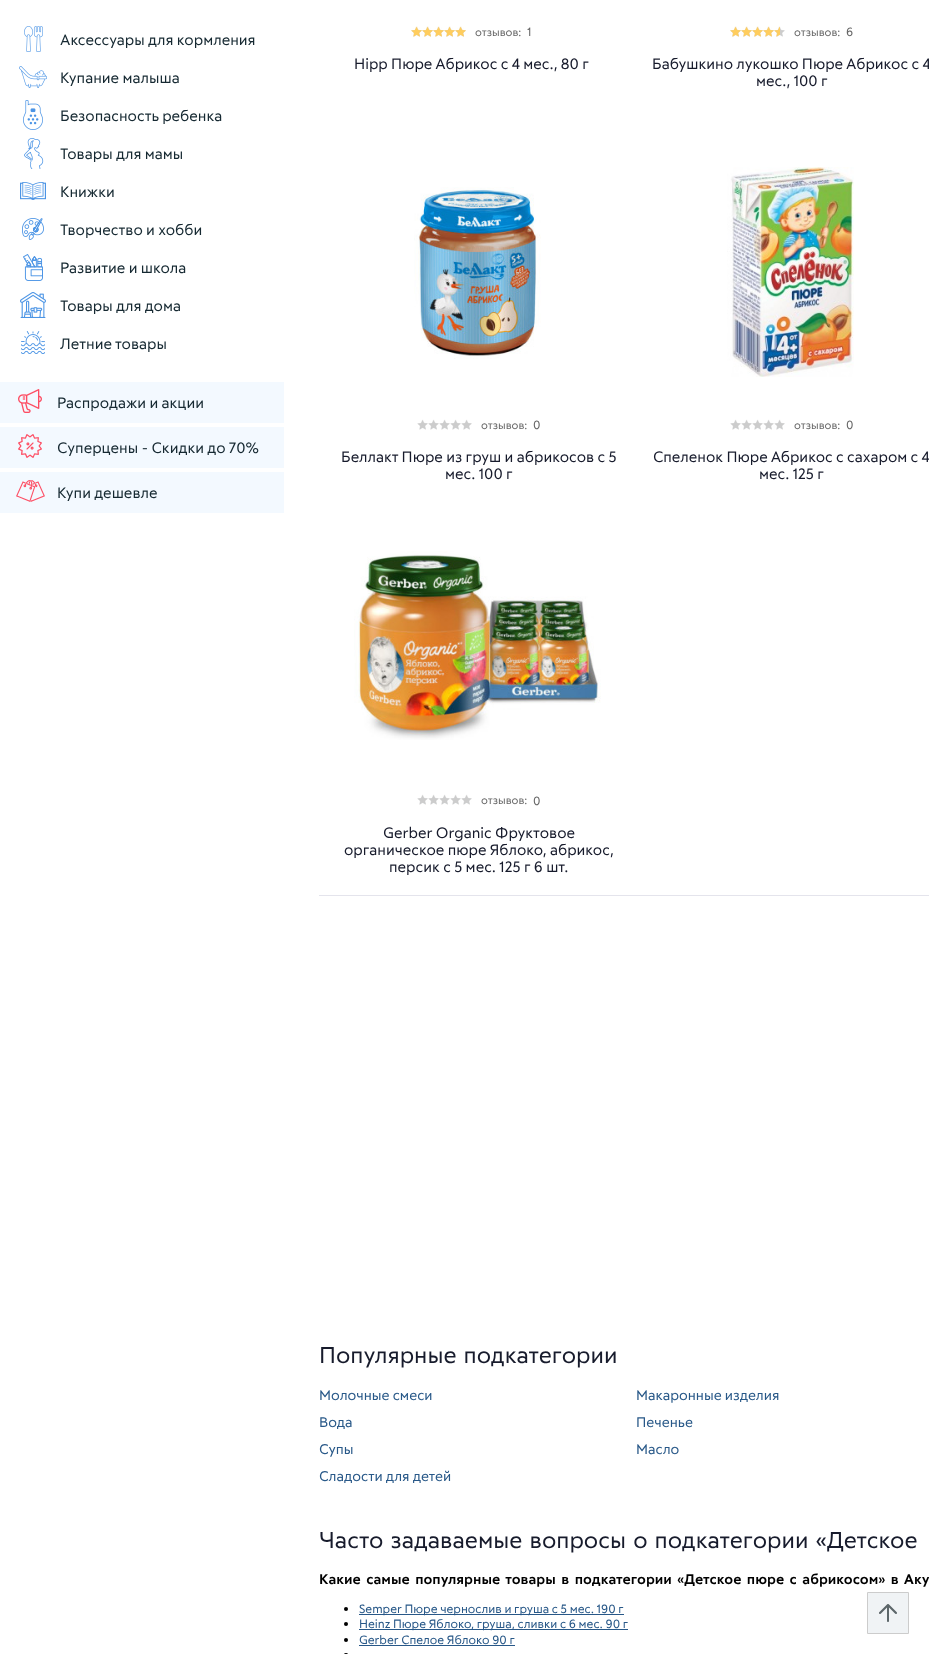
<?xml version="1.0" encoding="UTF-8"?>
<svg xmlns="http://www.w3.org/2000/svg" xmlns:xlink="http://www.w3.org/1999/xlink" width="929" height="1654">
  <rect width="100%" height="100%" fill="#ffffff" />
  <image x="24" y="26" width="19" height="26" xlink:href="image1.png" />
  <image x="19" y="66" width="28" height="22" xlink:href="image2.png" />
  <image x="23" y="100" width="20" height="30" xlink:href="image3.png" />
  <image x="24" y="138" width="20" height="31" xlink:href="image4.png" />
  <image x="20" y="182" width="26" height="18" xlink:href="image5.png" />
  <image x="22" y="218" width="22" height="22" xlink:href="image6.png" />
  <image x="23" y="254" width="20" height="27" xlink:href="image7.png" />
  <image x="20" y="292" width="26" height="26" xlink:href="image8.png" />
  <image x="21" y="331" width="24" height="23" xlink:href="image9.png" />
  <rect y="382" width="284" height="41" fill="#f3f9ff" />
  <image x="18" y="389" width="24" height="24" xlink:href="image10.png" />
  <rect y="427" width="284" height="41" fill="#f3f9ff" />
  <image x="18" y="434" width="24" height="24" xlink:href="image11.png" />
  <rect y="472" width="284" height="41" fill="#f3f9ff" />
  <image x="16" y="480" width="29" height="22" xlink:href="image12.png" />
  <image x="411" y="26" width="55" height="11" xlink:href="image13.png" />
  <image x="411" y="26" width="55" height="11" xlink:href="image14.png" />
  <image x="730" y="26" width="55" height="11" xlink:href="image13.png" />
  <image x="730" y="26" width="50" height="11" xlink:href="image15.png" />
  <image x="414" y="187" width="127" height="172" xlink:href="image16.png" />
  <image x="417" y="419" width="55" height="11" xlink:href="image13.png" />
  <image x="727" y="167" width="127" height="210" xlink:href="image17.png" />
  <image x="730" y="419" width="55" height="11" xlink:href="image13.png" />
  <image x="354" y="551" width="247" height="189" xlink:href="image18.png" />
  <image x="417" y="794" width="55" height="11" xlink:href="image13.png" />
  <rect x="319" y="895" width="610" height="1" fill="#e4e4ec" />
  <circle cx="346" cy="1609" r="2" fill="#000000" />
  <rect x="359" y="1614" width="265" height="1" fill="#285888" />
  <circle cx="346" cy="1624" r="2" fill="#000000" />
  <rect x="359" y="1629" width="269" height="1" fill="#285888" />
  <circle cx="346" cy="1640" r="2" fill="#000000" />
  <rect x="359" y="1645" width="156" height="1" fill="#285888" />
  <rect x="344" y="1653" width="4" height="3" rx="2" fill="#000000" />
  <rect x="868" y="1593" width="40" height="40" fill="#f0f3f5" />
  <image x="879" y="1604" width="18" height="18" xlink:href="image19.png" />
  <path d="M 908.5 1592.5 v 41 h -41 v -41 z" fill="none" stroke="#cccccc" />
  <text x="60" y="45" style="font-family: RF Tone; font-size: 15px; fill: #162932">Аксессуары для кормления</text>
  <text x="60" y="83" style="font-family: RF Tone; font-size: 15px; fill: #162932">Купание малыша</text>
  <text x="60" y="121" style="font-family: RF Tone; font-size: 15px; fill: #162932">Безопасность ребенка</text>
  <text x="60" y="159" style="font-family: RF Tone; font-size: 15px; fill: #162932">Товары для мамы</text>
  <text x="60" y="197" style="font-family: RF Tone; font-size: 15px; fill: #162932">Книжки</text>
  <text x="60" y="235" style="font-family: RF Tone; font-size: 15px; fill: #162932">Творчество и хобби</text>
  <text x="60" y="273" style="font-family: RF Tone; font-size: 15px; fill: #162932">Развитие и школа</text>
  <text x="60" y="311" style="font-family: RF Tone; font-size: 15px; fill: #162932">Товары для дома</text>
  <text x="60" y="349" style="font-family: RF Tone; font-size: 15px; fill: #162932">Летние товары</text>
  <text x="57" y="408" style="font-family: RF Tone; font-size: 15px; fill: #162932">Распродажи и акции</text>
  <text x="57" y="453" style="font-family: RF Tone; font-size: 15px; fill: #162932">Суперцены - Скидки до 70%</text>
  <text x="57" y="498" style="font-family: RF Tone; font-size: 15px; fill: #162932">Купи дешевле</text>
  <text x="475" y="36" style="font-family: RF Tone; font-size: 11px; fill: #666666">отзывов:</text>
  <text x="527" y="36" style="font-family: RF Tone; font-size: 12px; fill: #666666">1</text>
  <text x="354" y="69" style="font-family: RF Tone; font-size: 15px; fill: #171b2c">Hipp Пюре Абрикос с 4 мес., 80 г</text>
  <text x="794" y="36" style="font-family: RF Tone; font-size: 11px; fill: #666666">отзывов:</text>
  <text x="846" y="36" style="font-family: RF Tone; font-size: 12px; fill: #666666">6</text>
  <text x="652" y="69" style="font-family: RF Tone; font-size: 15px; fill: #171b2c">Бабушкино лукошко Пюре Абрикос с 4</text>
  <text x="756" y="86" style="font-family: RF Tone; font-size: 15px; fill: #171b2c">мес., 100 г</text>
  <text x="481" y="429" style="font-family: RF Tone; font-size: 11px; fill: #666666">отзывов:</text>
  <text x="533" y="429" style="font-family: RF Tone; font-size: 12px; fill: #666666">0</text>
  <text x="341" y="462" style="font-family: RF Tone; font-size: 15px; fill: #171b2c">Беллакт Пюре из груш и абрикосов с 5</text>
  <text x="445" y="479" style="font-family: RF Tone; font-size: 15px; fill: #171b2c">мес. 100 г</text>
  <text x="794" y="429" style="font-family: RF Tone; font-size: 11px; fill: #666666">отзывов:</text>
  <text x="846" y="429" style="font-family: RF Tone; font-size: 12px; fill: #666666">0</text>
  <text x="653" y="462" style="font-family: RF Tone; font-size: 15px; fill: #171b2c">Спеленок Пюре Абрикос с сахаром с 4</text>
  <text x="759" y="479" style="font-family: RF Tone; font-size: 15px; fill: #171b2c">мес. 125 г</text>
  <text x="481" y="804" style="font-family: RF Tone; font-size: 11px; fill: #666666">отзывов:</text>
  <text x="533" y="805" style="font-family: RF Tone; font-size: 12px; fill: #666666">0</text>
  <text x="383" y="838" style="font-family: RF Tone; font-size: 15px; fill: #171b2c">Gerber Organic Фруктовое</text>
  <text x="344" y="855" style="font-family: RF Tone; font-size: 15px; fill: #171b2c">органическое пюре Яблоко, абрикос,</text>
  <text x="389" y="872" style="font-family: RF Tone; font-size: 15px; fill: #171b2c">персик с 5 мес. 125 г 6 шт.</text>
  <text x="319" y="1363" word-spacing="2" style="font-family: RF Tone; font-size: 23px; fill: #171b2c">Популярные подкатегории</text>
  <text x="319" y="1400" style="font-family: RF Tone; font-size: 14px; fill: #285888">Молочные смеси</text>
  <text x="636" y="1400" style="font-family: RF Tone; font-size: 14px; fill: #285888">Макаронные изделия</text>
  <text x="319" y="1427" style="font-family: RF Tone; font-size: 14px; fill: #285888">Вода</text>
  <text x="636" y="1427" style="font-family: RF Tone; font-size: 14px; fill: #285888">Печенье</text>
  <text x="319" y="1454" style="font-family: RF Tone; font-size: 14px; fill: #285888">Супы</text>
  <text x="636" y="1454" style="font-family: RF Tone; font-size: 14px; fill: #285888">Масло</text>
  <text x="319" y="1481" style="font-family: RF Tone; font-size: 14px; fill: #285888">Сладости для детей</text>
  <text x="319" y="1548" word-spacing="2" style="font-family: RF Tone; font-size: 23px; fill: #171b2c">Часто задаваемые вопросы о подкатегории «Детское</text>
  <text x="319" y="1584" word-spacing="2" style="font-family: RF Tone; font-size: 14.05px; font-weight: bold; fill: #000000">Какие самые популярные товары в подкатегории «Детское пюре с абрикосом» в Аку</text>
  <text x="359" y="1613" style="font-family: RF Tone; font-size: 12px; fill: #285888">Semper Пюре чернослив и груша с 5 мес. 190 г</text>
  <text x="359" y="1628" style="font-family: RF Tone; font-size: 12px; fill: #285888">Heinz Пюре Яблоко, груша, сливки с 6 мес. 90 г</text>
  <text x="359" y="1644" style="font-family: RF Tone; font-size: 12px; fill: #285888">Gerber Спелое Яблоко 90 г</text>
</svg>
